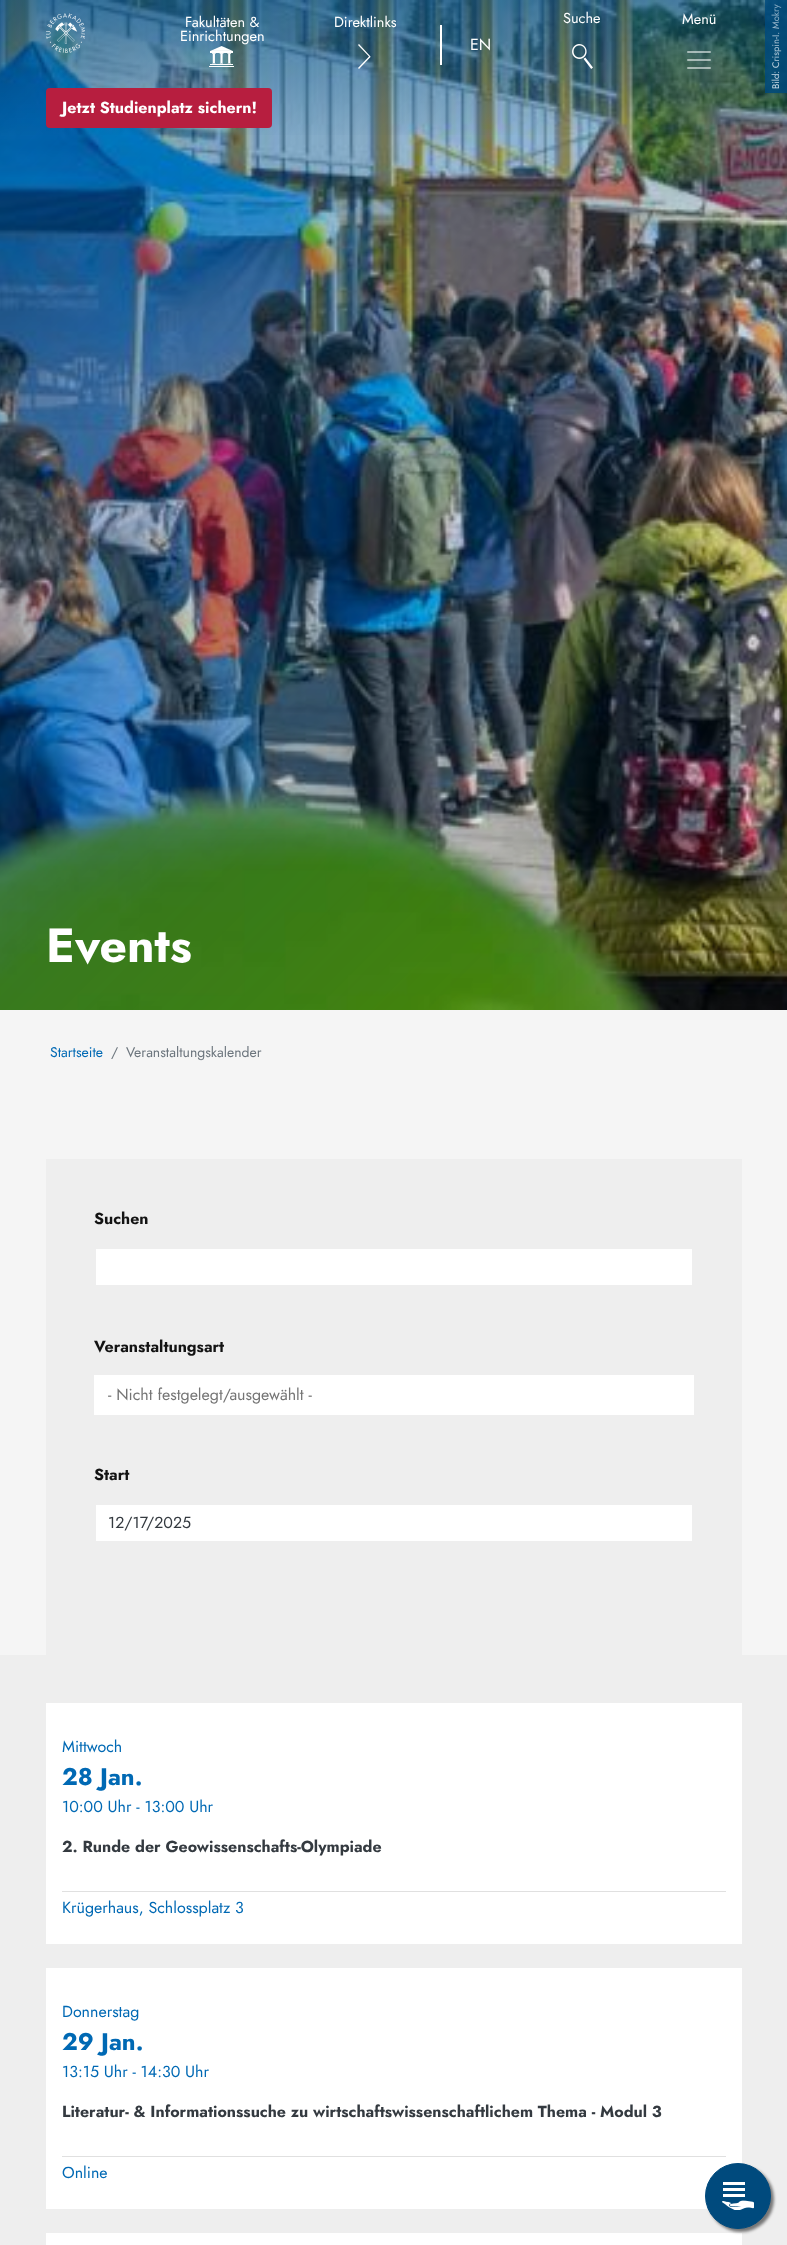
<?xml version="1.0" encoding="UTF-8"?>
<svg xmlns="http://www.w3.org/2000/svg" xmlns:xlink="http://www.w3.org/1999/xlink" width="787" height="2245">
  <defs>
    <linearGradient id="g1" gradientUnits="userSpaceOnUse" x1="394" y1="141" x2="394" y2="0"><stop offset="0" stop-color="#004a7d" stop-opacity="0" /><stop offset="1" stop-color="#004a7d" stop-opacity="0.5" /></linearGradient>
  </defs>
  <rect width="100%" height="100%" fill="#f5f5f5" />
  <image x="0" y="0" width="787" height="1010" xlink:href="image1.png" />
  <rect x="765" width="22" height="93" fill="#004a7d" fill-opacity="0.85" />
  <rect x="46" y="1159" width="696" height="496" fill="#eeeeee" />
  <rect x="96" y="1249" width="596" height="36" fill="#ffffff" />
  <rect x="94" y="1375" width="600" height="40" fill="#ffffff" />
  <rect x="96" y="1505" width="596" height="36" fill="#ffffff" />
  <rect y="1655" width="787" height="590" fill="#eeeeee" />
  <rect x="46" y="1703" width="696" height="241" fill="#ffffff" />
  <rect x="62" y="1891" width="664" height="1" fill="#e0e0e0" />
  <rect x="46" y="1968" width="696" height="241" fill="#ffffff" />
  <rect x="62" y="2156" width="664" height="1" fill="#e0e0e0" />
  <rect x="46" y="2233" width="696" height="12" fill="#ffffff" />
  <rect x="708" y="2166" width="66" height="66" rx="33" fill="#000000" fill-opacity="0.5" filter="blur(1.5px)" />
  <circle cx="738" cy="2196" r="32.5" fill="#004a7d" stroke="#004a7d" />
  <image x="722" y="2182" width="32" height="28" xlink:href="image6.png" />
  <text x="779" y="68" transform="rotate(-90 779 68)" style="font-family: Jost; font-size: 9.5px; fill: #ffffff">Crispin-I. Mokry</text>
  <text x="779" y="89" transform="rotate(-90 779 89)" style="font-family: Jost; font-size: 9.5px; fill: #ffffff">Bild:</text>
  <text x="46" y="962" style="font-family: Jost; font-size: 48px; font-weight: bold; fill: #ffffff">Events</text>
  <rect width="787" height="135" fill="url(#g1)" />
  <image x="46" y="13" width="39" height="40" xlink:href="image2.png" />
  <text x="185" y="27" style="font-family: Jost; font-size: 14.5px; fill: #ffffff">Fakultäten &amp;</text>
  <text x="180" y="41" style="font-family: Jost; font-size: 14.5px; fill: #ffffff">Einrichtungen</text>
  <image x="209" y="46" width="25" height="21" xlink:href="image3.png" />
  <text x="334" y="27" style="font-family: Jost; font-size: 14.5px; fill: #ffffff">Direktlinks</text>
  <path d="M 370.5 57 l -11.5 12 l -1 -1 l 11 -11.5 l -11 -11.5 l 1 -1 l 11.5 12.5 z" fill="#ffffff" />
  <text x="563" y="23" style="font-family: Jost; font-size: 14.5px; fill: #ffffff">Suche</text>
  <image x="572" y="44" width="21" height="25" xlink:href="image4.png" />
  <text x="682" y="24" style="font-family: Jost; font-size: 14.5px; fill: #ffffff">Menü</text>
  <image x="687" y="51" width="24" height="18" xlink:href="image5.png" />
  <rect x="440" y="25" width="2" height="40" fill="#ffffff" />
  <text x="470" y="50" style="font-family: Jost; font-size: 16px; fill: #ffffff">EN</text>
  <rect x="46" y="88" width="226" height="40" rx="4" fill="#b71e3f" />
  <text x="62" y="113" style="font-family: Jost; font-size: 16px; font-weight: bold; fill: #ffffff">Jetzt Studienplatz sichern!</text>
  <text x="50" y="1057" style="font-family: Jost; font-size: 14px; fill: #0069b4">Startseite</text>
  <text x="111" y="1057" style="font-family: Jost; font-size: 14px; fill: #6c757d">/</text>
  <text x="126" y="1057" style="font-family: Jost; font-size: 14px; fill: #6c757d">Veranstaltungskalender</text>
  <text x="94" y="1224" style="font-family: Jost; font-size: 16px; font-weight: bold; fill: #131313">Suchen</text>
  <text x="94" y="1352" style="font-family: Jost; font-size: 16px; font-weight: bold; fill: #131313">Veranstaltungsart</text>
  <text x="108" y="1400" style="font-family: Jost; font-size: 16px; fill: #757575">- Nicht festgelegt/ausgewählt -</text>
  <text x="94" y="1480" style="font-family: Jost; font-size: 16px; font-weight: bold; fill: #131313">Start</text>
  <text x="108" y="1528" style="font-family: Jost; font-size: 16px; fill: #343a40">12/17</text>
  <text x="146" y="1528" style="font-family: Jost; font-size: 16px; fill: #343a40">/2025</text>
  <text x="62" y="1752" style="font-family: Jost; font-size: 16px; fill: #0069b4">Mittwoch</text>
  <text x="62" y="1785" style="font-family: Jost; font-size: 24px; font-weight: bold; fill: #0069b4">28 Jan.</text>
  <text x="62" y="1812" style="font-family: Jost; font-size: 16px; fill: #0069b4">10:00 Uhr - 13:00 Uhr</text>
  <text x="62" y="1852" style="font-family: Jost; font-size: 16px; font-weight: bold; fill: #343a40">2. Runde der Geowissenschafts-Olympiade</text>
  <text x="62" y="1913" style="font-family: Jost; font-size: 16px; fill: #0069b4">Krügerhaus, Schlossplatz 3</text>
  <text x="62" y="2017" style="font-family: Jost; font-size: 16px; fill: #0069b4">Donnerstag</text>
  <text x="62" y="2050" style="font-family: Jost; font-size: 24px; font-weight: bold; fill: #0069b4">29 Jan.</text>
  <text x="62" y="2077" style="font-family: Jost; font-size: 16px; fill: #0069b4">13:15 Uhr - 14:30 Uhr</text>
  <text x="62" y="2117" style="font-family: Jost; font-size: 16px; font-weight: bold; fill: #343a40">Literatur- &amp; Informationssuche zu wirtschaftswissenschaftlichem Thema - Modul 3</text>
  <text x="62" y="2178" style="font-family: Jost; font-size: 16px; fill: #0069b4">Online</text>
</svg>
